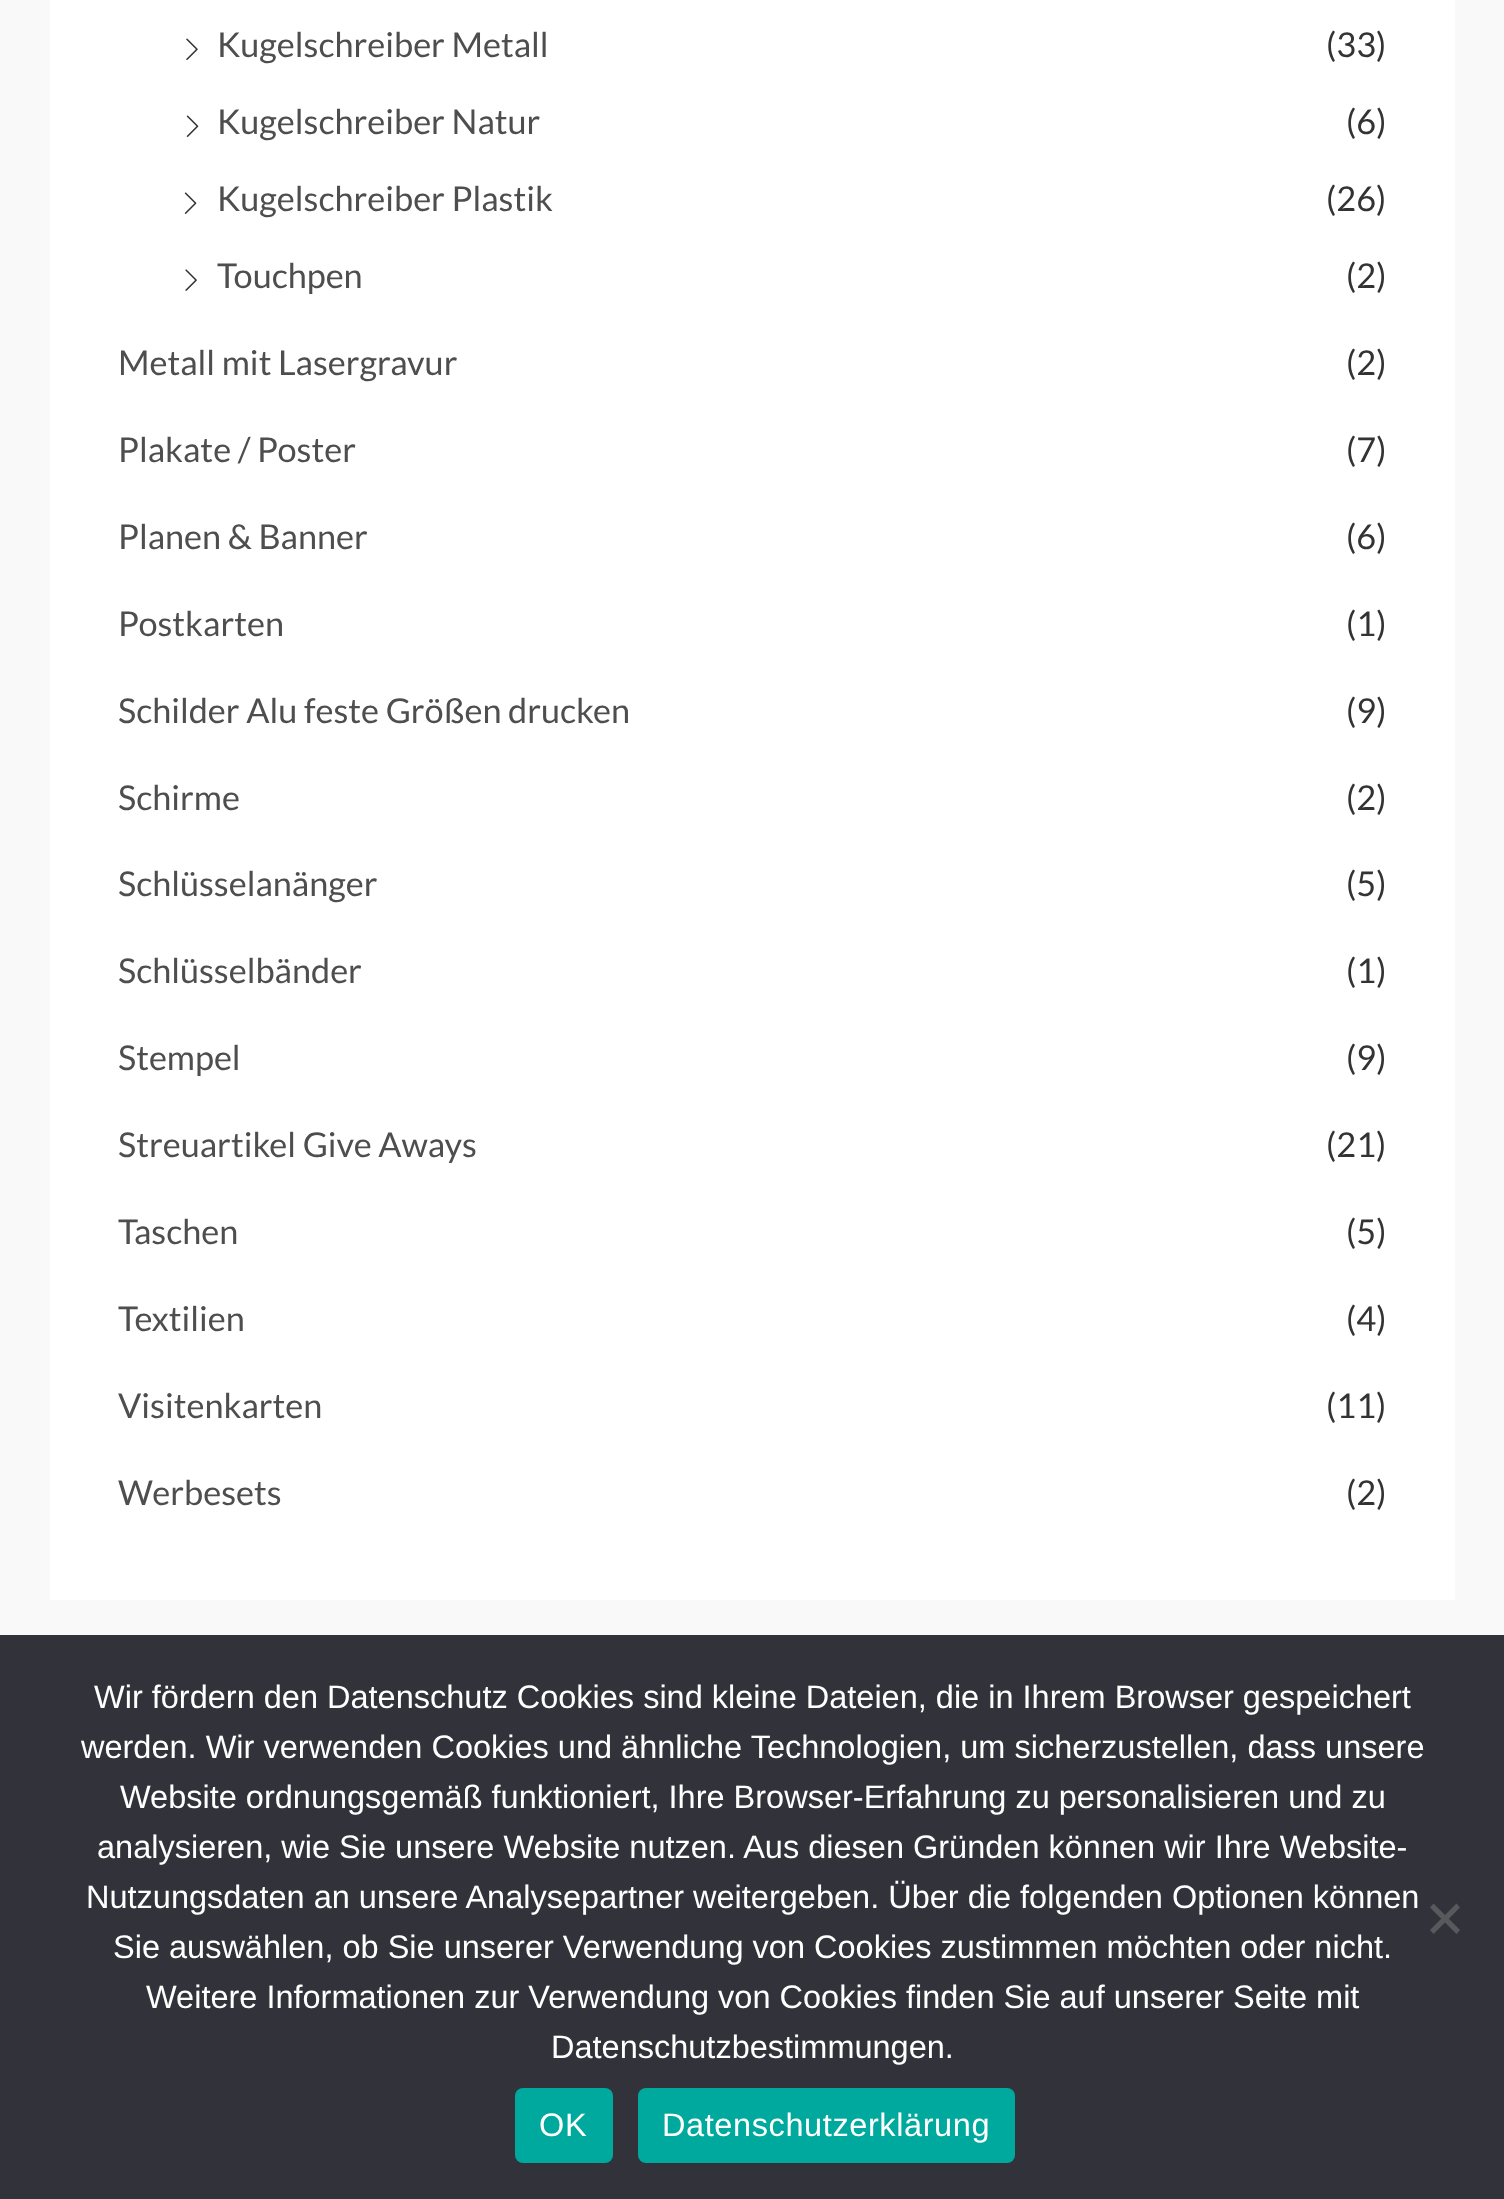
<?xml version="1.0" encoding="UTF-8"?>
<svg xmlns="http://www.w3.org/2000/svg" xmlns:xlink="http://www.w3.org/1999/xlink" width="1504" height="2199">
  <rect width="100%" height="100%" fill="#f9f9f9" />
  <rect x="50" width="1405" height="1600" fill="#ffffff" />
  <image x="186" y="38" width="12" height="22" xlink:href="image1.png" />
  <image x="186" y="115" width="13" height="22" xlink:href="image2.png" />
  <image x="184" y="192" width="13" height="22" xlink:href="image3.png" />
  <image x="185" y="269" width="12" height="22" xlink:href="image4.png" />
  <rect y="1635" width="1504" height="564" fill="#32323a" />
  <path d="M 1456.5 1903.5 l 3.5 4 l -26.5 26.5 l -3.5 -4 z" fill="#59595d" />
  <path d="M 1430 1907.5 l 3.5 -4 l 26.5 26.5 l -3.5 4 z" fill="#59595d" />
  <rect x="515" y="2088" width="98" height="75" rx="8" fill="#00a99d" />
  <rect x="638" y="2088" width="377" height="75" rx="8" fill="#00a99d" />
  <text x="217" y="57" style="font-family: Lato; font-size: 34.25px; fill: #4e4e4e">Kugelschreiber Metall</text>
  <text x="1326" y="57" style="font-family: Lato; font-size: 34.25px; fill: #333333">(33)</text>
  <text x="217" y="134" style="font-family: Lato; font-size: 34.25px; fill: #4e4e4e">Kugelschreiber Natur</text>
  <text x="1346" y="134" style="font-family: Lato; font-size: 34.25px; fill: #333333">(6)</text>
  <text x="217" y="211" style="font-family: Lato; font-size: 34.25px; fill: #4e4e4e">Kugelschreiber Plastik</text>
  <text x="1326" y="211" style="font-family: Lato; font-size: 34.25px; fill: #333333">(26)</text>
  <text x="217" y="288" style="font-family: Lato; font-size: 34.25px; fill: #4e4e4e">Touchpen</text>
  <text x="1346" y="288" style="font-family: Lato; font-size: 34.25px; fill: #333333">(2)</text>
  <text x="118" y="375" style="font-family: Lato; font-size: 34.25px; fill: #4e4e4e">Metall mit Lasergravur</text>
  <text x="1346" y="375" style="font-family: Lato; font-size: 34.25px; fill: #333333">(2)</text>
  <text x="118" y="462" style="font-family: Lato; font-size: 34.25px; fill: #4e4e4e">Plakate / Poster</text>
  <text x="1346" y="462" style="font-family: Lato; font-size: 34.25px; fill: #333333">(7)</text>
  <text x="118" y="549" style="font-family: Lato; font-size: 34.25px; fill: #4e4e4e">Planen &amp; Banner</text>
  <text x="1346" y="549" style="font-family: Lato; font-size: 34.25px; fill: #333333">(6)</text>
  <text x="118" y="636" style="font-family: Lato; font-size: 34.25px; fill: #4e4e4e">Postkarten</text>
  <text x="1346" y="636" style="font-family: Lato; font-size: 34.25px; fill: #333333">(1)</text>
  <text x="118" y="723" style="font-family: Lato; font-size: 34.25px; fill: #4e4e4e">Schilder Alu feste Größen drucken</text>
  <text x="1346" y="723" style="font-family: Lato; font-size: 34.25px; fill: #333333">(9)</text>
  <text x="118" y="810" style="font-family: Lato; font-size: 34.25px; fill: #4e4e4e">Schirme</text>
  <text x="1346" y="810" style="font-family: Lato; font-size: 34.25px; fill: #333333">(2)</text>
  <text x="118" y="896" style="font-family: Lato; font-size: 34.25px; fill: #4e4e4e">Schlüsselanänger</text>
  <text x="1346" y="896" style="font-family: Lato; font-size: 34.25px; fill: #333333">(5)</text>
  <text x="118" y="983" style="font-family: Lato; font-size: 34.25px; fill: #4e4e4e">Schlüsselbänder</text>
  <text x="1346" y="983" style="font-family: Lato; font-size: 34.25px; fill: #333333">(1)</text>
  <text x="118" y="1070" style="font-family: Lato; font-size: 34.25px; fill: #4e4e4e">Stempel</text>
  <text x="1346" y="1070" style="font-family: Lato; font-size: 34.25px; fill: #333333">(9)</text>
  <text x="118" y="1157" style="font-family: Lato; font-size: 34.25px; fill: #4e4e4e">Streuartikel Give Aways</text>
  <text x="1326" y="1157" style="font-family: Lato; font-size: 34.25px; fill: #333333">(21)</text>
  <text x="118" y="1244" style="font-family: Lato; font-size: 34.25px; fill: #4e4e4e">Taschen</text>
  <text x="1346" y="1244" style="font-family: Lato; font-size: 34.25px; fill: #333333">(5)</text>
  <text x="118" y="1331" style="font-family: Lato; font-size: 34.25px; fill: #4e4e4e">Textilien</text>
  <text x="1346" y="1331" style="font-family: Lato; font-size: 34.25px; fill: #333333">(4)</text>
  <text x="118" y="1418" style="font-family: Lato; font-size: 34.25px; fill: #4e4e4e">Visitenkarten</text>
  <text x="1326" y="1418" style="font-family: Lato; font-size: 34.25px; fill: #333333">(11)</text>
  <text x="118" y="1505" style="font-family: Lato; font-size: 34.25px; fill: #4e4e4e">Werbesets</text>
  <text x="1346" y="1505" style="font-family: Lato; font-size: 34.25px; fill: #333333">(2)</text>
  <text x="94" y="1708" style="font-family: Liberation Sans; font-size: 32.5px; fill: #ffffff">Wir fördern den Datenschutz Cookies sind kleine Dateien, die in Ihrem Browser gespeichert</text>
  <text x="81" y="1758" style="font-family: Liberation Sans; font-size: 32.5px; fill: #ffffff">werden. Wir verwenden Cookies und ähnliche Technologien, um sicherzustellen, dass unsere</text>
  <text x="120" y="1808" style="font-family: Liberation Sans; font-size: 32.5px; fill: #ffffff">Website ordnungsgemäß funktioniert, Ihre Browser-Erfahrung zu personalisieren und zu</text>
  <text x="97" y="1858" style="font-family: Liberation Sans; font-size: 32.5px; fill: #ffffff">analysieren, wie Sie unsere Website nutzen. Aus diesen Gründen können wir Ihre Website-</text>
  <text x="86" y="1908" style="font-family: Liberation Sans; font-size: 32.5px; fill: #ffffff">Nutzungsdaten an unsere Analysepartner weitergeben. Über die folgenden Optionen können</text>
  <text x="113" y="1958" style="font-family: Liberation Sans; font-size: 32.5px; fill: #ffffff">Sie auswählen, ob Sie unserer Verwendung von Cookies zustimmen möchten oder nicht.</text>
  <text x="146" y="2008" style="font-family: Liberation Sans; font-size: 32.5px; fill: #ffffff">Weitere Informationen zur Verwendung von Cookies finden Sie auf unserer Seite mit</text>
  <text x="551" y="2058" style="font-family: Liberation Sans; font-size: 32.5px; fill: #ffffff">Datenschutzbestimmungen.</text>
  <text x="539" y="2136" style="font-family: Liberation Sans; font-size: 32.5px; letter-spacing: 0.6px; fill: #ffffff">OK</text>
  <text x="662" y="2136" style="font-family: Liberation Sans; font-size: 32.5px; letter-spacing: 0.6px; fill: #ffffff">Datenschutzerklärung</text>
</svg>
